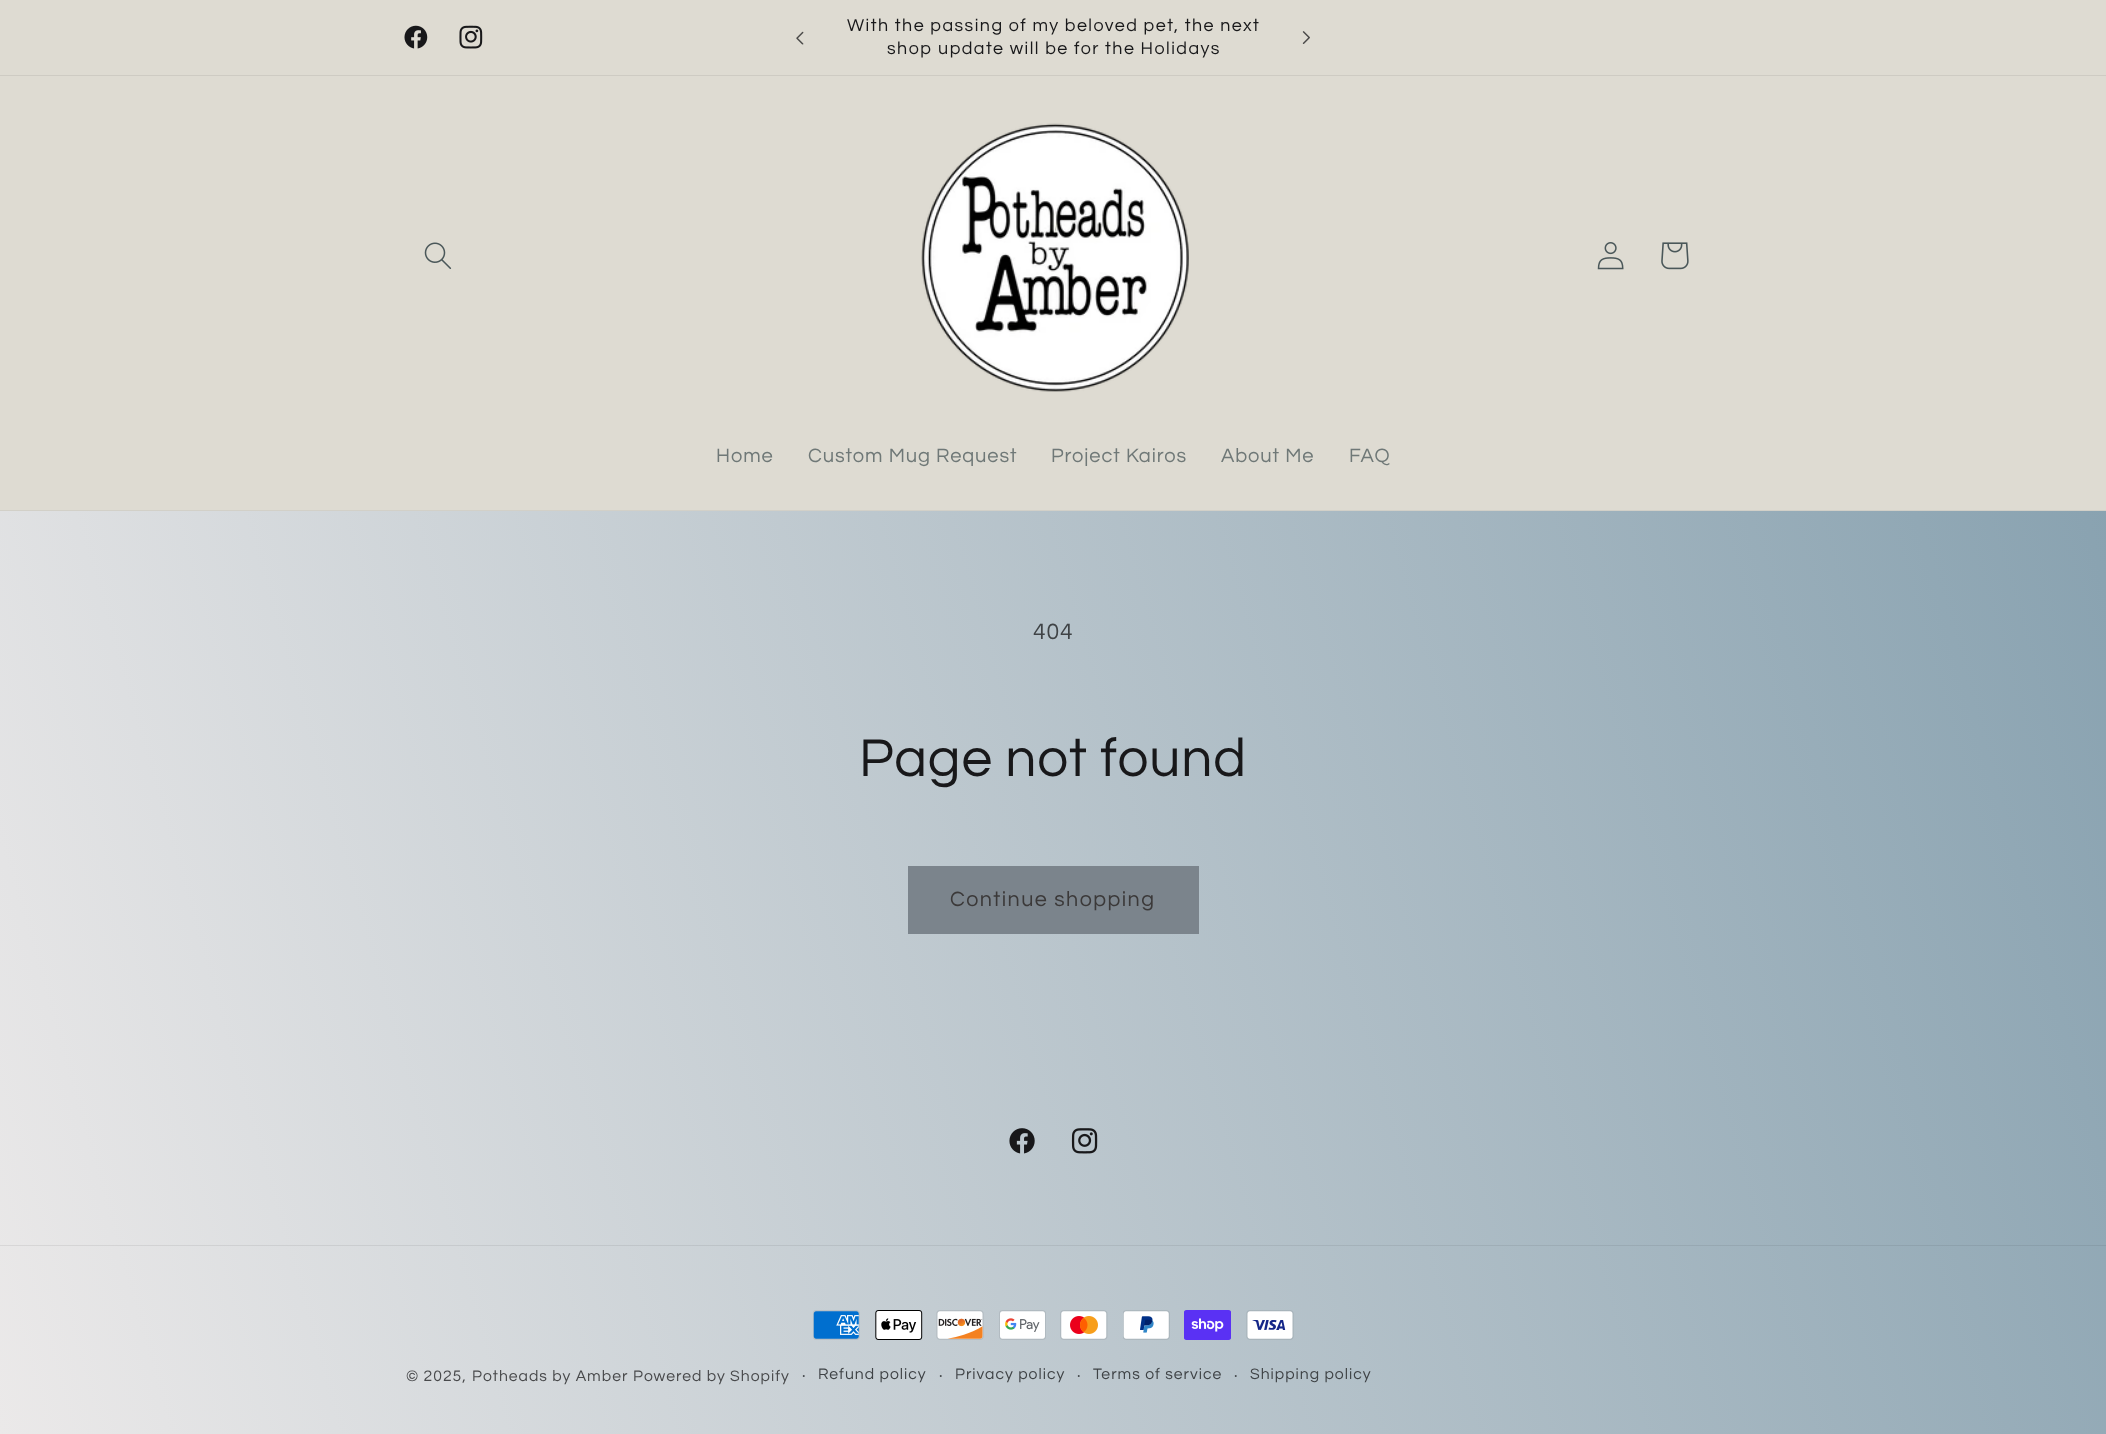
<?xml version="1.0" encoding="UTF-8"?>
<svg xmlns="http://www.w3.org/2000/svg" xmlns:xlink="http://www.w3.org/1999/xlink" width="2106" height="1434">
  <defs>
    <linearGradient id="g1" gradientUnits="userSpaceOnUse" x1="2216" y1="384" x2="-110" y2="1051"><stop offset="0" stop-color="#839ead" /><stop offset="1" stop-color="#ebe9e9" /></linearGradient>
    <linearGradient id="g2" gradientUnits="userSpaceOnUse" x1="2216" y1="384" x2="-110" y2="1051"><stop offset="0" stop-color="#7a93a1" /><stop offset="1" stop-color="#dad8d8" /></linearGradient>
    <linearGradient id="g3" gradientUnits="userSpaceOnUse" x1="1040" y1="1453" x2="1066" y2="-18"><stop offset="0" stop-color="#b9a89c" /><stop offset="0.5" stop-color="#dedbd2" /><stop offset="1" stop-color="#dedbd2" /></linearGradient>
  </defs>
  <rect width="100%" height="100%" fill="#ffffff" />
  <rect y="511" width="2106" height="923" fill="url(#g1)" />
  <rect y="1245" width="2106" height="1" fill="url(#g2)" />
  <rect width="2106" height="75" fill="#dedbd2" />
  <rect y="75" width="2106" height="1" fill="#cecbc3" />
  <image x="404" y="25" width="24" height="24" xlink:href="image1.png" />
  <image x="459" y="25" width="24" height="24" xlink:href="image2.png" />
  <image x="796" y="31" width="8" height="14" xlink:href="image3.png" />
  <image x="1302" y="31" width="8" height="13" xlink:href="image4.png" />
  <rect y="76" width="2106" height="434" fill="url(#g3)" />
  <rect y="510" width="2106" height="1" fill="#d2d0c8" />
  <image x="424" y="242" width="28" height="27" xlink:href="image5.png" />
  <image x="921" y="123" width="268" height="269" xlink:href="image6.png" />
  <image x="1597" y="242" width="27" height="28" xlink:href="image7.png" />
  <image x="1661" y="242" width="28" height="28" xlink:href="image8.png" />
  <rect x="908" y="866" width="291" height="68" fill="#7b848c" />
  <image x="1009" y="1128" width="26" height="26" xlink:href="image9.png" />
  <image x="1071" y="1128" width="27" height="26" xlink:href="image10.png" />
  <image x="813" y="1310" width="47" height="30" xlink:href="image11.png" />
  <image x="875" y="1310" width="48" height="30" xlink:href="image12.png" />
  <image x="936" y="1310" width="48" height="30" xlink:href="image13.png" />
  <image x="999" y="1310" width="47" height="30" xlink:href="image14.png" />
  <image x="1060" y="1310" width="48" height="30" xlink:href="image15.png" />
  <image x="1123" y="1310" width="47" height="30" xlink:href="image16.png" />
  <image x="1184" y="1310" width="47" height="30" xlink:href="image17.png" />
  <image x="1246" y="1310" width="48" height="30" xlink:href="image18.png" />
  <text x="847" y="31" style="font-family: Questrial; font-size: 17.9px; letter-spacing: 1.45px; fill: #18181a">With the passing of my beloved pet, the next</text>
  <text x="887" y="54" style="font-family: Questrial; font-size: 17.9px; letter-spacing: 1.45px; fill: #18181a">shop update will be for the Holidays</text>
  <text x="716" y="462" style="font-family: Questrial; font-size: 20.1px; letter-spacing: 0.9px; fill: #6f7877">Home</text>
  <text x="808" y="462" style="font-family: Questrial; font-size: 20.1px; letter-spacing: 0.9px; fill: #6f7877">Custom Mug Request</text>
  <text x="1051" y="462" style="font-family: Questrial; font-size: 20.1px; letter-spacing: 0.9px; fill: #6f7877">Project Kairos</text>
  <text x="1221" y="462" style="font-family: Questrial; font-size: 20.1px; letter-spacing: 0.9px; fill: #6f7877">About Me</text>
  <text x="1349" y="462" style="font-family: Questrial; font-size: 20.1px; letter-spacing: 0.9px; fill: #6f7877">FAQ</text>
  <text x="1033" y="639" style="font-family: Questrial; font-size: 23px; letter-spacing: 0.9px; fill: #3f4346">404</text>
  <text x="859" y="776" style="font-family: Questrial; font-size: 55px; letter-spacing: 0.8px; fill: #18181a">Page not found</text>
  <text x="950" y="906" style="font-family: Questrial; font-size: 21.5px; letter-spacing: 1.45px; fill: #3b3939">Continue shopping</text>
  <text x="406" y="1381" style="font-family: Questrial; font-size: 15.75px; letter-spacing: 1px; fill: #48494b">© 2025,</text>
  <text x="472" y="1381" style="font-family: Questrial; font-size: 15.75px; letter-spacing: 1px; fill: #48494b">Potheads by Amber</text>
  <text x="633" y="1381" style="font-family: Questrial; font-size: 15.75px; letter-spacing: 1px; fill: #48494b">Powered by Shopify</text>
  <text x="802" y="1381" style="font-family: Questrial; font-size: 17px; letter-spacing: 1px; fill: #3f4346">·</text>
  <text x="818" y="1379" style="font-family: Questrial; font-size: 15.75px; letter-spacing: 1px; fill: #3f4346">Refund policy</text>
  <text x="939" y="1381" style="font-family: Questrial; font-size: 17px; letter-spacing: 1px; fill: #3f4346">·</text>
  <text x="955" y="1379" style="font-family: Questrial; font-size: 15.75px; letter-spacing: 1px; fill: #3f4346">Privacy policy</text>
  <text x="1077" y="1381" style="font-family: Questrial; font-size: 17px; letter-spacing: 1px; fill: #3f4346">·</text>
  <text x="1093" y="1379" style="font-family: Questrial; font-size: 15.75px; letter-spacing: 1px; fill: #3f4346">Terms of service</text>
  <text x="1234" y="1381" style="font-family: Questrial; font-size: 17px; letter-spacing: 1px; fill: #3f4346">·</text>
  <text x="1250" y="1379" style="font-family: Questrial; font-size: 15.75px; letter-spacing: 1px; fill: #3f4346">Shipping policy</text>
</svg>
